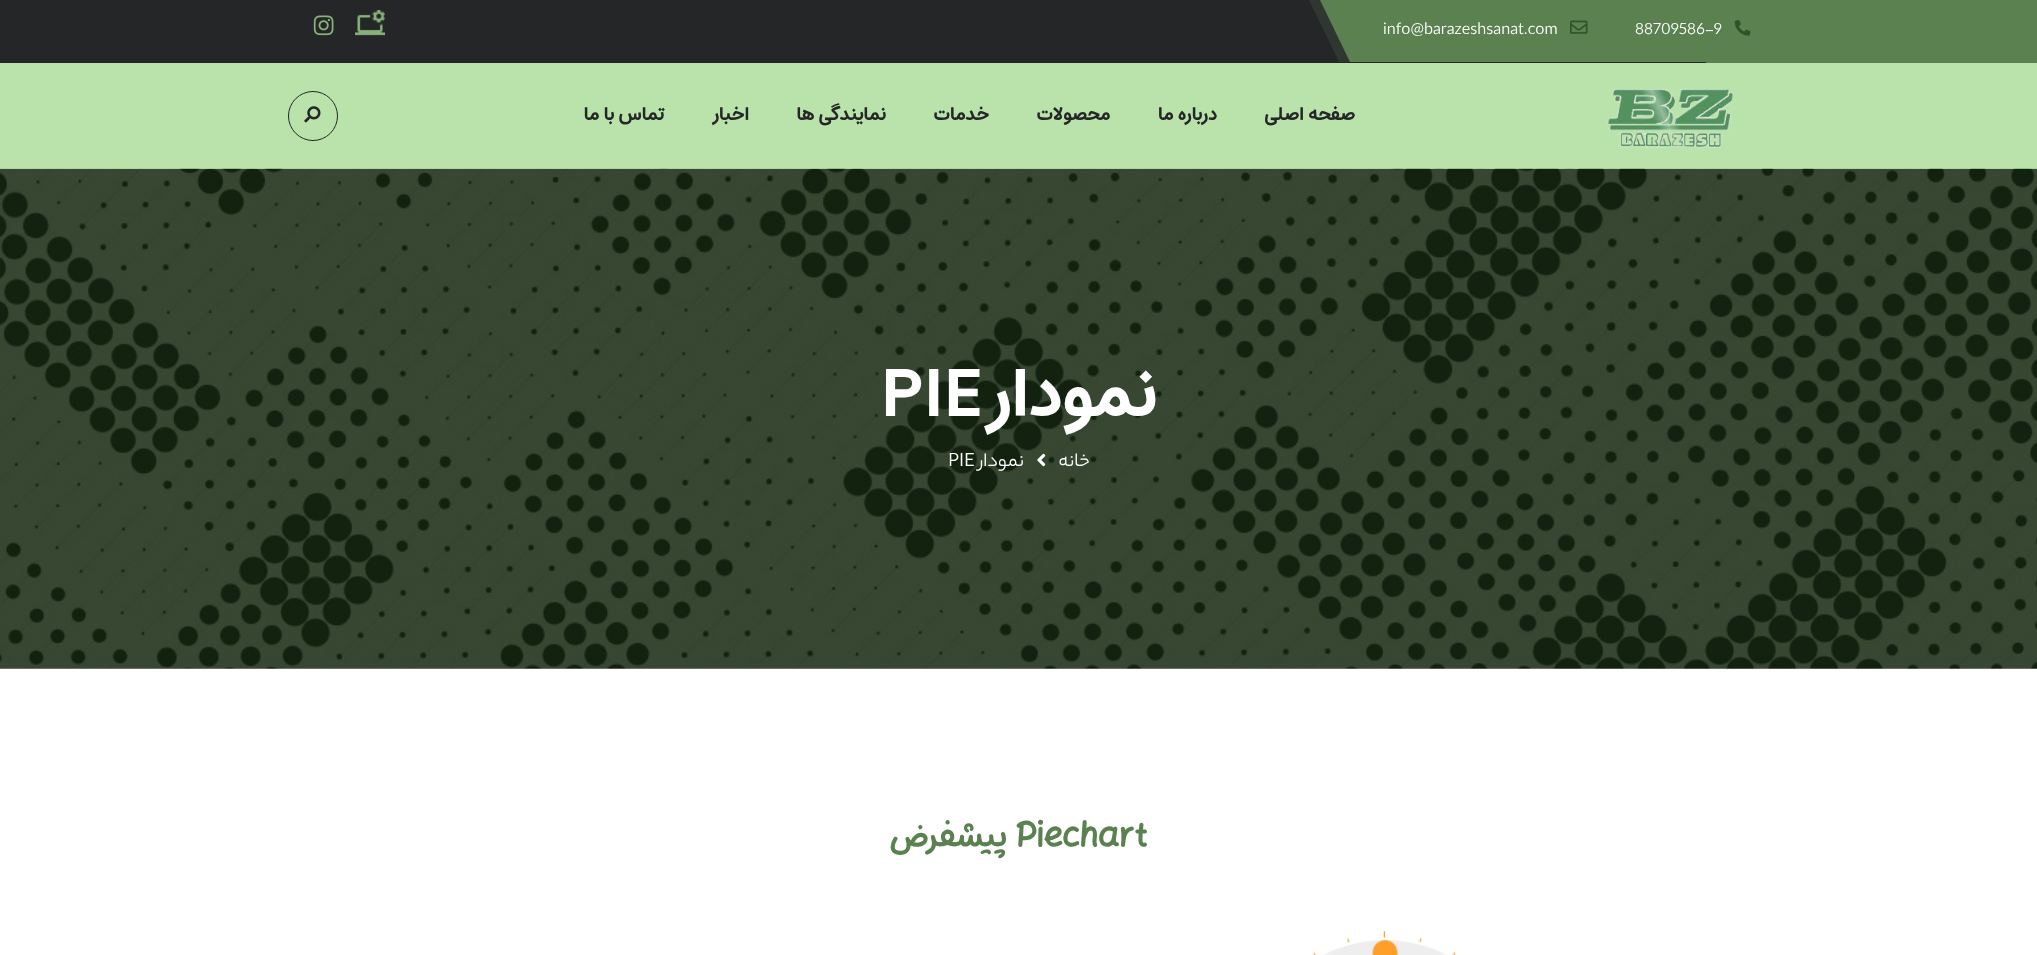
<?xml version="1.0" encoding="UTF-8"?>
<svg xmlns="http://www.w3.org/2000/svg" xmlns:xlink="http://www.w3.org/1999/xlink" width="2037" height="955">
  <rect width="100%" height="100%" fill="#ffffff" />
  <rect width="1706" height="63" fill="#252628" />
  <rect x="1706" width="331" height="63" fill="#5a814f" />
  <path d="M 1320 0 h 434 l 30 62 h -434 z" fill="#5a814f" />
  <path d="M 1309 0 h 433 l 31 62 h -434 z" fill="#5a814f" fill-opacity="0.2" />
  <image x="1734" y="20" width="17" height="16" xlink:href="image1.png" />
  <image x="1570" y="20" width="18" height="14" xlink:href="image2.png" />
  <image x="355" y="10" width="30" height="26" xlink:href="image3.png" />
  <image x="313" y="15" width="21" height="21" xlink:href="image4.png" />
  <rect y="63" width="2037" height="106" fill="#b9e3ab" />
  <image x="1607" y="88" width="127" height="61" xlink:href="image5.png" />
  <circle cx="313" cy="116" r="24.5" fill="none" stroke="#252628" />
  <image x="304" y="106" width="17" height="17" xlink:href="image6.png" />
  <image x="0" y="168" width="2037" height="501" xlink:href="image7.png" />
  <image x="1037" y="453" width="9" height="14" xlink:href="image8.png" />
  <image x="1312" y="931" width="145" height="24" xlink:href="image9.png" />
  <text x="1635" y="34" style="font-family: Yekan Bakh; font-size: 17.5px; fill: #ffffff">88709586-9</text>
  <text x="1383" y="34" style="font-family: Yekan Bakh; font-size: 17.5px; fill: #ffffff">info@barazeshsanat.com</text>
  <text x="1355" y="120" style="font-family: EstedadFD; font-size: 18.75px; font-weight: bold; direction: rtl; fill: #252628">صفحه اصلی</text>
  <text x="1217" y="120" style="font-family: EstedadFD; font-size: 18.75px; font-weight: bold; direction: rtl; fill: #252628">درباره ما</text>
  <text x="1110" y="120" style="font-family: EstedadFD; font-size: 18.75px; font-weight: bold; direction: rtl; fill: #252628">محصولات</text>
  <text x="989" y="120" style="font-family: EstedadFD; font-size: 18.75px; font-weight: bold; direction: rtl; fill: #252628">خدمات</text>
  <text x="886" y="120" style="font-family: EstedadFD; font-size: 18.75px; font-weight: bold; direction: rtl; fill: #252628">نمایندگی ها</text>
  <text x="749" y="120" style="font-family: EstedadFD; font-size: 18.75px; font-weight: bold; direction: rtl; fill: #252628">اخبار</text>
  <text x="664" y="120" style="font-family: EstedadFD; font-size: 18.75px; font-weight: bold; direction: rtl; fill: #252628">تماس با ما</text>
  <text x="1156" y="416" style="font-family: EstedadFD; font-size: 69px; font-weight: bold; direction: rtl; fill: #ffffff">نمودار</text>
  <text x="881" y="416" style="font-family: EstedadFD; font-size: 69px; font-weight: bold; fill: #ffffff">PIE</text>
  <text x="1090" y="466" style="font-family: Yekan Bakh; font-size: 20px; direction: rtl; fill: #ffffff">خانه</text>
  <text x="1024" y="466" style="font-family: Yekan Bakh; font-size: 20px; direction: rtl; fill: #ffffff">نمودار</text>
  <text x="948" y="466" style="font-family: Yekan Bakh; font-size: 20px; fill: #ffffff">PIE</text>
  <text x="1016" y="845" style="font-family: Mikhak; font-size: 34px; font-weight: bold; fill: #5a814f">Piechart</text>
  <text x="1007" y="845" style="font-family: Mikhak; font-size: 34px; font-weight: bold; direction: rtl; fill: #5a814f">پیشفرض</text>
</svg>
